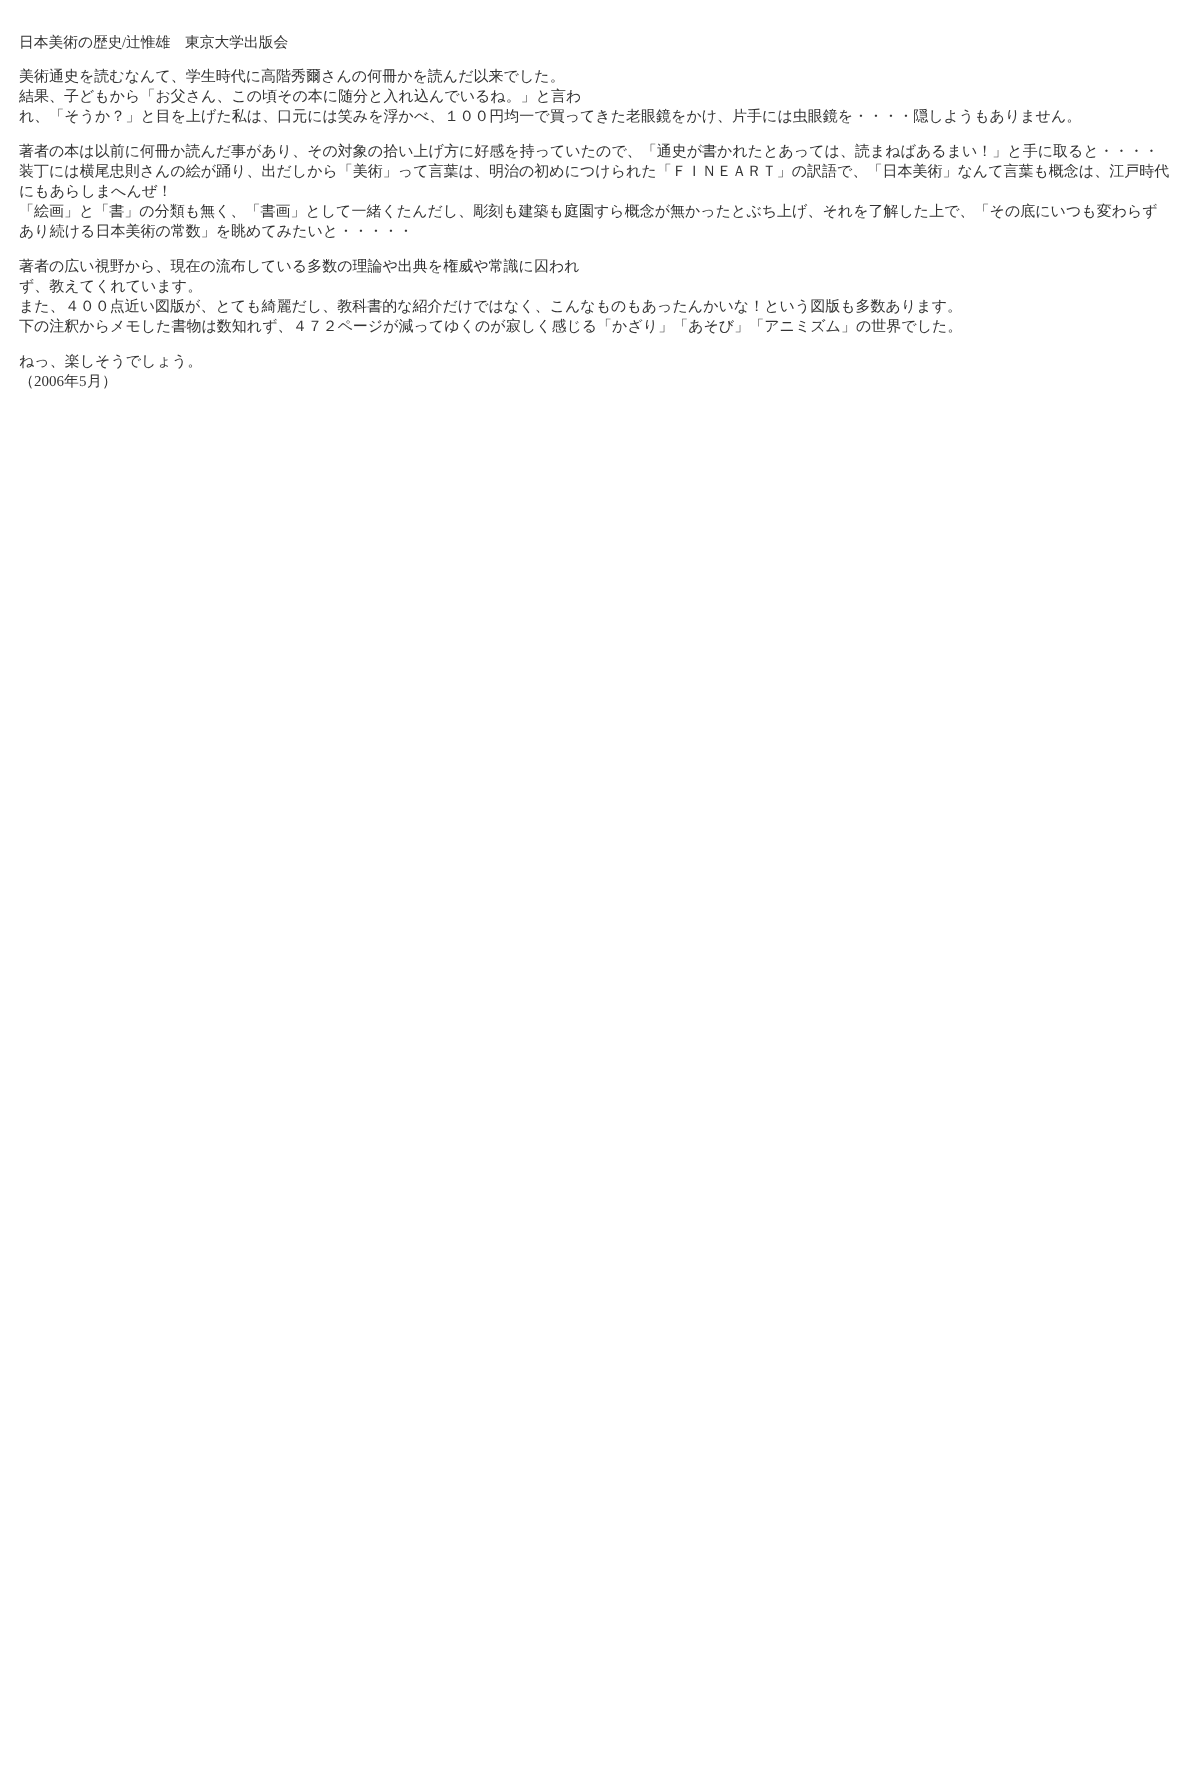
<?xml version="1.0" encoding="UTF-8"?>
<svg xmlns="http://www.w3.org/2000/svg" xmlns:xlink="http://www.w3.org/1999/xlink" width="1189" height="1791">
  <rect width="100%" height="100%" fill="#ffffff" />
  <text x="19" y="47" style="font-family: WenQuanYi Zen Hei; font-size: 14.75px; font-weight: 500; fill: #333333">日本美術の歴史</text>
  <text x="122" y="47" style="font-family: Liberation Serif; font-size: 14.75px; fill: #333333">/</text>
  <text x="126" y="47" style="font-family: WenQuanYi Zen Hei; font-size: 14.75px; font-weight: 500; fill: #333333">辻惟雄　東京大学出版会</text>
  <text x="19" y="81" style="font-family: WenQuanYi Zen Hei; font-size: 15px; font-weight: 500; fill: #333333">美術通史を読むなんて、学生時代に高階秀爾さんの何冊かを読んだ以来でした。</text>
  <text x="19" y="101" style="font-family: WenQuanYi Zen Hei; font-size: 15px; font-weight: 500; fill: #333333">結果、子どもから「お父さん、この頃その本に随分と入れ込んでいるね。」と言わ</text>
  <text x="19" y="121" style="font-family: WenQuanYi Zen Hei; font-size: 15px; font-weight: 500; fill: #333333">れ、「そうか？」と目を上げた私は、口元には笑みを浮かべ、１００円均一で買ってきた老眼鏡をかけ、片手には虫眼鏡を・・・・隠しようもありません。</text>
  <text x="19" y="156" style="font-family: WenQuanYi Zen Hei; font-size: 15px; font-weight: 500; fill: #333333">著者の本は以前に何冊か読んだ事があり、その対象の拾い上げ方に好感を持っていたので、「通史が書かれたとあっては、読まねばあるまい！」と手に取ると・・・・</text>
  <text x="19" y="176" style="font-family: WenQuanYi Zen Hei; font-size: 15px; font-weight: 500; fill: #333333">装丁には横尾忠則さんの絵が踊り、出だしから「美術」って言葉は、明治の初めにつけられた「ＦＩＮＥＡＲＴ」の訳語で、「日本美術」なんて言葉も概念は、江戸時代</text>
  <text x="19" y="196" style="font-family: WenQuanYi Zen Hei; font-size: 15px; font-weight: 500; fill: #333333">にもあらしまへんぜ！</text>
  <text x="19" y="216" style="font-family: WenQuanYi Zen Hei; font-size: 15px; font-weight: 500; fill: #333333">「絵画」と「書」の分類も無く、「書画」として一緒くたんだし、彫刻も建築も庭園すら概念が無かったとぶち上げ、それを了解した上で、「その底にいつも変わらず</text>
  <text x="19" y="236" style="font-family: WenQuanYi Zen Hei; font-size: 15px; font-weight: 500; fill: #333333">あり続ける日本美術の常数」を眺めてみたいと・・・・・</text>
  <text x="19" y="271" style="font-family: WenQuanYi Zen Hei; font-size: 15px; font-weight: 500; fill: #333333">著者の広い視野から、現在の流布している多数の理論や出典を権威や常識に囚われ</text>
  <text x="19" y="291" style="font-family: WenQuanYi Zen Hei; font-size: 15px; font-weight: 500; fill: #333333">ず、教えてくれています。</text>
  <text x="19" y="311" style="font-family: WenQuanYi Zen Hei; font-size: 15px; font-weight: 500; fill: #333333">また、４００点近い図版が、とても綺麗だし、教科書的な紹介だけではなく、こんなものもあったんかいな！という図版も多数あります。</text>
  <text x="19" y="331" style="font-family: WenQuanYi Zen Hei; font-size: 15px; font-weight: 500; fill: #333333">下の注釈からメモした書物は数知れず、４７２ページが減ってゆくのが寂しく感じる「かざり」「あそび」「アニミズム」の世界でした。</text>
  <text x="19" y="366" style="font-family: WenQuanYi Zen Hei; font-size: 15px; font-weight: 500; fill: #333333">ねっ、楽しそうでしょう。</text>
  <text x="19" y="386" style="font-family: WenQuanYi Zen Hei; font-size: 15px; font-weight: 500; fill: #333333">（</text>
  <text x="34" y="386" style="font-family: Liberation Serif; font-size: 15px; fill: #333333">2006</text>
  <text x="64" y="386" style="font-family: WenQuanYi Zen Hei; font-size: 15px; font-weight: 500; fill: #333333">年</text>
  <text x="79" y="386" style="font-family: Liberation Serif; font-size: 15px; fill: #333333">5</text>
  <text x="87" y="386" style="font-family: WenQuanYi Zen Hei; font-size: 15px; font-weight: 500; fill: #333333">月）</text>
</svg>
